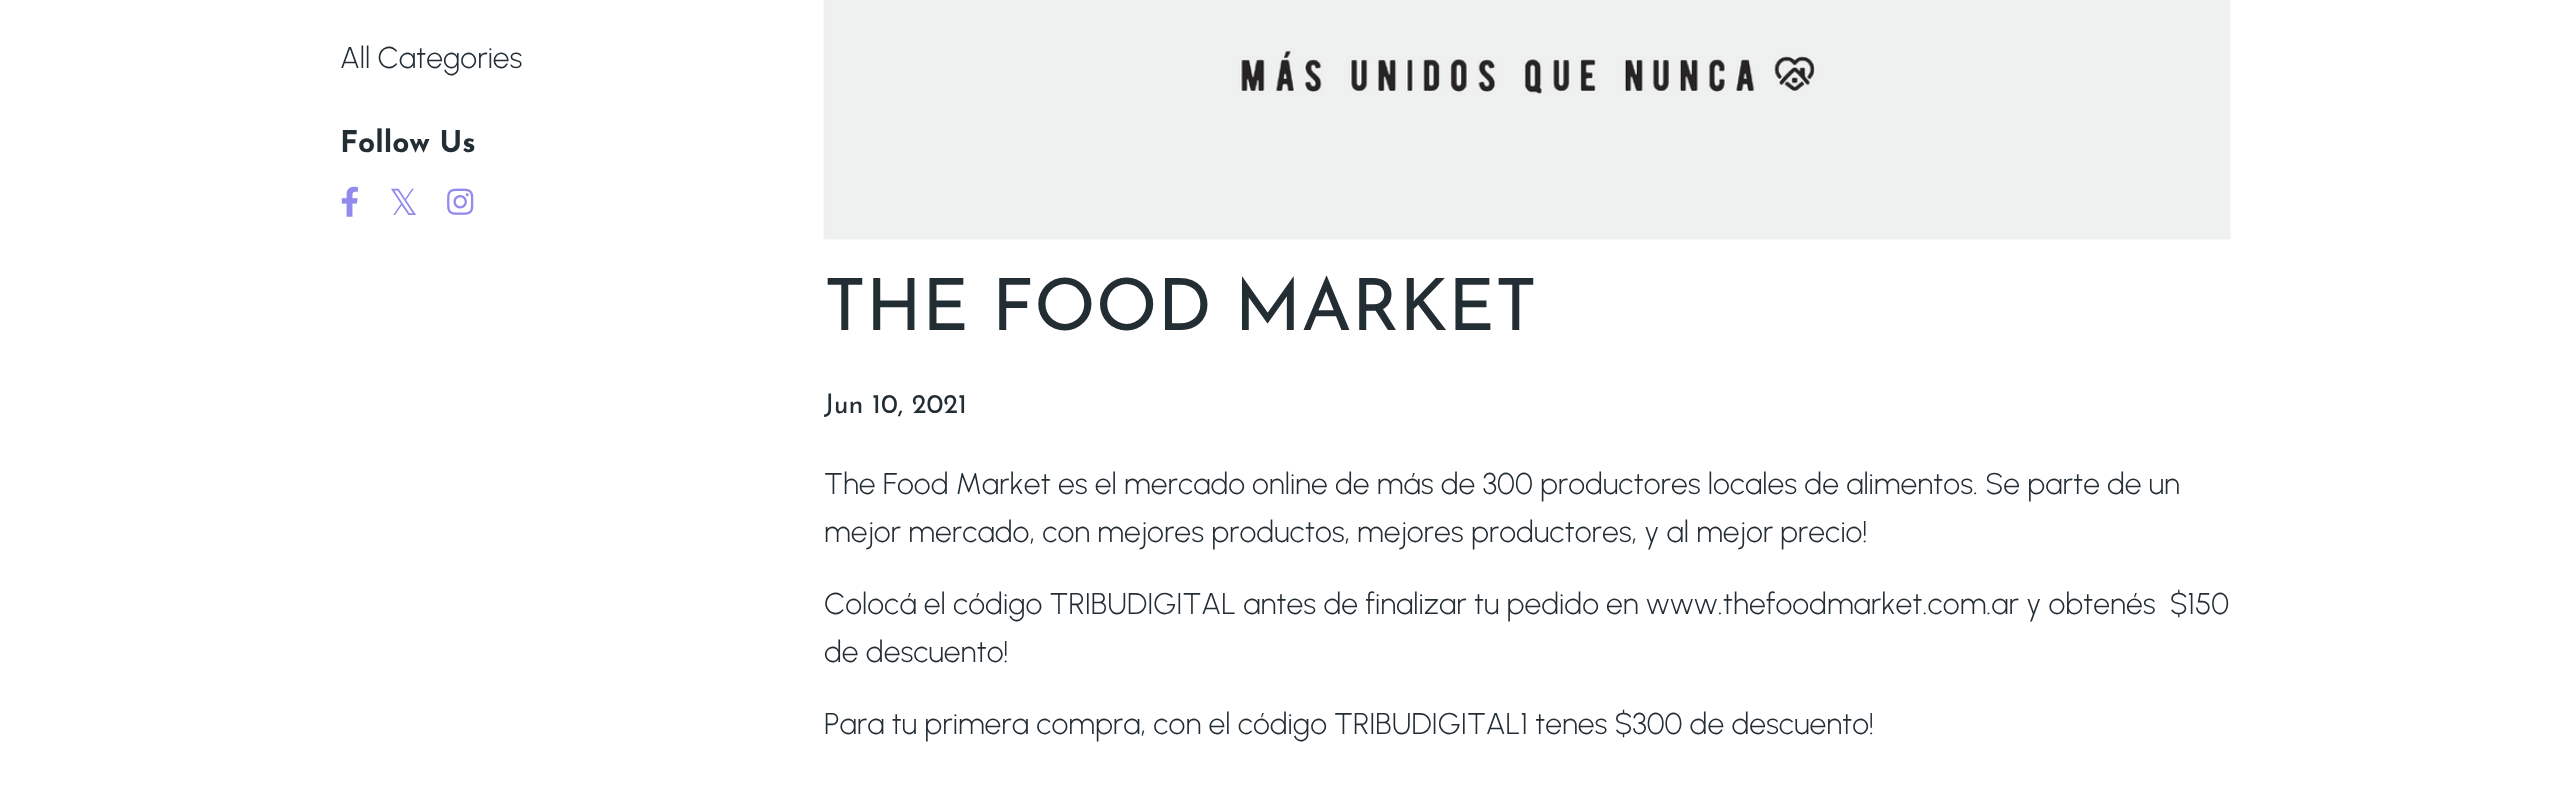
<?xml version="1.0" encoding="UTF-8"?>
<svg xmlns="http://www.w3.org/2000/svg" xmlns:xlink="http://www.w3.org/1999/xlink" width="2569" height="786">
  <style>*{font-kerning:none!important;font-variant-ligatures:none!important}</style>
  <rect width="100%" height="100%" fill="#ffffff" />
  <image x="341" y="186" width="17" height="31" xlink:href="image1.png" />
  <image x="447" y="188" width="27" height="27" xlink:href="image2.png" />
  <image x="823" y="0" width="1408" height="240" xlink:href="image3.png" />
  <text x="340" y="68" style="font-family: Urbanist; font-size: 30px; font-weight: 300; fill: #232d34">All Categories</text>
  <text x="340" y="152" style="font-family: Josefin Sans; font-size: 30px; font-weight: bold; fill: #232d34">Follow Us</text>
  <text x="389" y="215" style="font-family: DejaVu Sans; font-size: 36px; fill: #918bee">𝕏</text>
  <text x="824" y="330" style="font-family: Josefin Sans; font-size: 72px; fill: #232d34">THE FOOD MARKET</text>
  <text x="824" y="413" style="font-family: Josefin Sans; font-size: 27px; fill: #232d34">Jun 10, 2021</text>
  <text x="824" y="494" style="font-family: Urbanist; font-size: 30px; font-weight: 300; fill: #232d34">The Food Market es el mercado</text>
  <text x="1252" y="494" style="font-family: Urbanist; font-size: 30px; font-weight: 300; fill: #232d34">online de más de 300 productores locales de alimentos. Se parte</text>
  <text x="2107" y="494" style="font-family: Urbanist; font-size: 30px; font-weight: 300; fill: #232d34">de un</text>
  <text x="824" y="542" style="font-family: Urbanist; font-size: 30px; font-weight: 300; fill: #232d34">mejor mercado, con mejores productos,</text>
  <text x="1357" y="542" style="font-family: Urbanist; font-size: 30px; font-weight: 300; fill: #232d34">mejores productores, y al mejor</text>
  <text x="1780" y="542" style="font-family: Urbanist; font-size: 30px; font-weight: 300; fill: #232d34">precio!</text>
  <text x="824" y="614" style="font-family: Urbanist; font-size: 30px; font-weight: 300; fill: #232d34">Colocá el código TRIBUDIGITAL antes de finalizar tu pedido</text>
  <text x="1606" y="614" style="font-family: Urbanist; font-size: 30px; font-weight: 300; fill: #232d34">en www.thefoodmarket.com.ar y obtenés</text>
  <text x="2170" y="614" style="font-family: Urbanist; font-size: 30px; font-weight: 300; fill: #232d34">$150</text>
  <text x="824" y="662" style="font-family: Urbanist; font-size: 30px; font-weight: 300; fill: #232d34">de descuento!</text>
  <text x="824" y="734" style="font-family: Urbanist; font-size: 30px; font-weight: 300; fill: #232d34">Para tu primera compra, con el código</text>
  <text x="1334" y="734" style="font-family: Urbanist; font-size: 30px; font-weight: 300; fill: #232d34">TRIBUDIGITAL1 tenes $300 de descuento!</text>
</svg>
